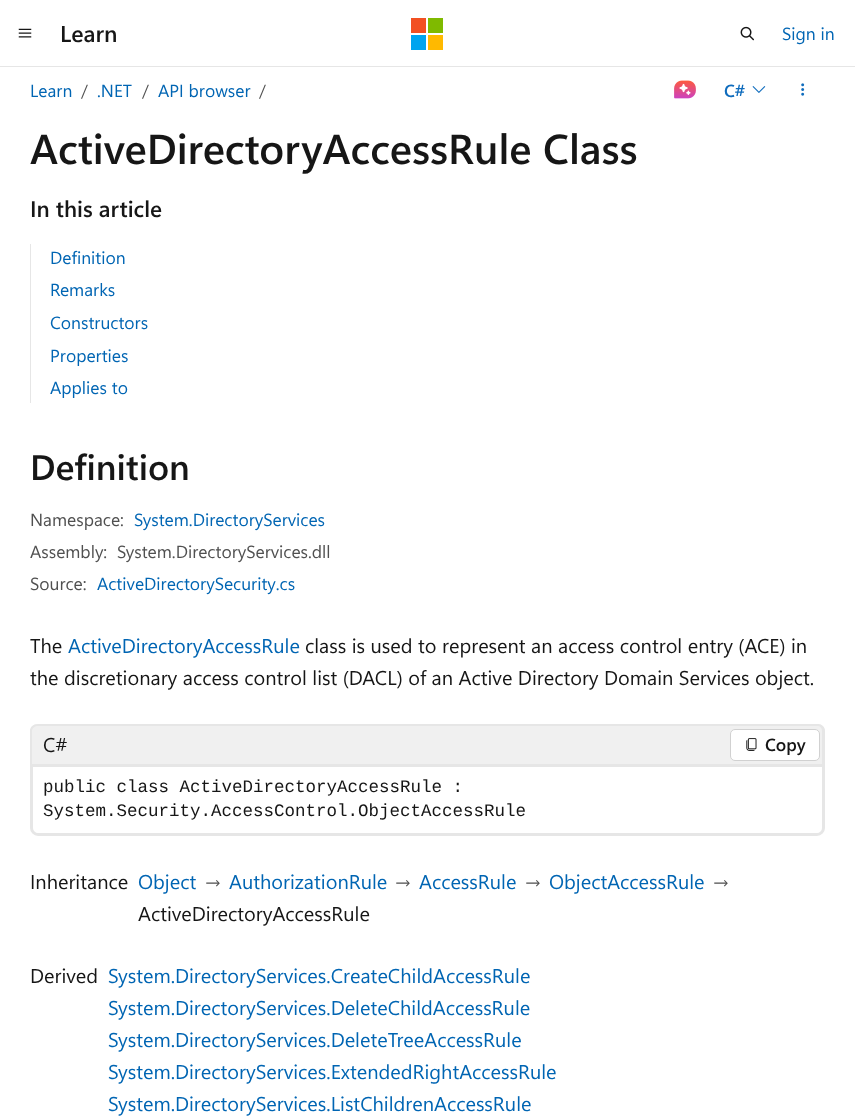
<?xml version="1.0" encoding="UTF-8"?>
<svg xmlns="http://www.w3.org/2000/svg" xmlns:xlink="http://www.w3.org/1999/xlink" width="855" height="1116">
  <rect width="100%" height="100%" fill="#ffffff" />
  <rect y="66" width="855" height="1" fill="#e6e6e6" />
  <image x="18" y="28" width="14" height="10" xlink:href="image1.png" />
  <rect x="411" y="18" width="15" height="15" fill="#f25022" />
  <rect x="428" y="18" width="15" height="15" fill="#7fba00" />
  <rect x="411" y="35" width="15" height="15" fill="#00a4ef" />
  <rect x="428" y="35" width="15" height="15" fill="#ffb900" />
  <image x="740" y="26" width="14" height="15" xlink:href="image2.png" />
  <image x="674" y="80" width="22" height="19" xlink:href="image3.png" />
  <image x="752" y="86" width="14" height="7" xlink:href="image4.png" />
  <image x="801" y="83" width="4" height="13" xlink:href="image5.png" />
  <rect x="30" y="244" width="1" height="159" fill="#e6e6e6" />
  <path d="M 38 724 h 779 c 4.5 0 8 3.5 8 8 v 32 h -795 v -32 c 0 -4.5 3.5 -8 8 -8 z" fill="#f0f0f0" />
  <path d="M 38 724 h 780 c 4 0 7 3 7 7 v 33 h -795 v -33 c 0 -4 3 -7 8 -7 z m 0 2 h 780 c 2 0 4 2 4 5 v 33 h -790 v -33 c 0 -3 3 -5 6 -5 z" fill="#e6e6e6" fill-rule="evenodd" />
  <rect x="730.5" y="729.5" width="89" height="31" rx="4.5" fill="#ffffff" stroke="#d1d1d1" />
  <image x="746" y="738" width="11" height="13" xlink:href="image6.png" />
  <path d="M 31.5 765.5 h 792 v 62.5 c 0 3.5 -3 6.5 -6.5 6.5 h -779 c -3.5 0 -6.5 -3 -6.5 -6.5 z" fill="none" stroke="#e6e6e6" stroke-width="3" />
  <text x="60" y="42" style="font-family: Segoe UI; font-size: 23px; font-weight: 600; fill: #161616">Learn</text>
  <text x="782" y="40" style="font-family: Segoe UI; font-size: 17.5px; fill: #0065b3">Sign in</text>
  <text x="30" y="97" style="font-family: Segoe UI; font-size: 17.5px; fill: #0065b3">Learn</text>
  <text x="81" y="97" style="font-family: Segoe UI; font-size: 17.5px; fill: #505050">/</text>
  <text x="97" y="97" style="font-family: Segoe UI; font-size: 17.5px; fill: #0065b3">.NET</text>
  <text x="142" y="97" style="font-family: Segoe UI; font-size: 17.5px; fill: #505050">/</text>
  <text x="158" y="97" style="font-family: Segoe UI; font-size: 17.5px; fill: #0065b3">API browser</text>
  <text x="259" y="97" style="font-family: Segoe UI; font-size: 17.5px; fill: #505050">/</text>
  <text x="724" y="97" style="font-family: Segoe UI; font-size: 17.5px; font-weight: 600; fill: #0f6cbd">C#</text>
  <text x="30" y="164" style="font-family: Segoe UI; font-size: 41.75px; font-weight: 600; fill: #161616">ActiveDirectoryAccessRule Class</text>
  <text x="30" y="217" style="font-family: Segoe UI; font-size: 22.5px; font-weight: 600; fill: #161616">In this article</text>
  <text x="50" y="264" style="font-family: Segoe UI; font-size: 17.5px; fill: #0065b3">Definition</text>
  <text x="50" y="296" style="font-family: Segoe UI; font-size: 17.5px; fill: #0065b3">Remarks</text>
  <text x="50" y="329" style="font-family: Segoe UI; font-size: 17.5px; fill: #0065b3">Constructors</text>
  <text x="50" y="362" style="font-family: Segoe UI; font-size: 17.5px; fill: #0065b3">Properties</text>
  <text x="50" y="394" style="font-family: Segoe UI; font-size: 17.5px; fill: #0065b3">Applies to</text>
  <text x="30" y="480" style="font-family: Segoe UI; font-size: 35.5px; font-weight: 600; fill: #161616">Definition</text>
  <text x="30" y="526" style="font-family: Segoe UI; font-size: 17.5px; fill: #505050">Namespace:</text>
  <text x="134" y="526" style="font-family: Segoe UI; font-size: 17.5px; fill: #0065b3">System.DirectoryServices</text>
  <text x="30" y="558" style="font-family: Segoe UI; font-size: 17.5px; fill: #505050">Assembly:</text>
  <text x="117" y="558" style="font-family: Segoe UI; font-size: 17.5px; fill: #505050">System.DirectoryServices.dll</text>
  <text x="30" y="590" style="font-family: Segoe UI; font-size: 17.5px; fill: #505050">Source:</text>
  <text x="97" y="590" style="font-family: Segoe UI; font-size: 17.5px; fill: #0065b3">ActiveDirectorySecurity.cs</text>
  <text x="30" y="653" style="font-family: Segoe UI; font-size: 20px; fill: #161616">The</text>
  <text x="68" y="653" style="font-family: Segoe UI; font-size: 20px; fill: #0065b3">ActiveDirectoryAccessRule</text>
  <text x="305" y="653" style="font-family: Segoe UI; font-size: 20px; fill: #161616">class is used to represent an access control entry (ACE) in</text>
  <text x="30" y="685" style="font-family: Segoe UI; font-size: 20px; fill: #161616">the discretionary access control list (DACL) of an Active Directory Domain Services object.</text>
  <text x="43" y="752" style="font-family: Segoe UI; font-size: 20px; fill: #161616">C#</text>
  <text x="765" y="751" style="font-family: Segoe UI; font-size: 17.5px; font-weight: 600; fill: #161616">Copy</text>
  <text x="43" y="792" style="font-family: Liberation Mono; font-size: 17.5px; fill: #161616">public class ActiveDirectoryAccessRule :</text>
  <text x="43" y="816" style="font-family: Liberation Mono; font-size: 17.5px; fill: #161616">System.Security.AccessControl.ObjectAccessRule</text>
  <text x="30" y="889" style="font-family: Segoe UI; font-size: 20px; fill: #161616">Inheritance</text>
  <text x="138" y="889" style="font-family: Segoe UI; font-size: 20px; fill: #0065b3">Object</text>
  <text x="204" y="889" style="font-family: Segoe UI; font-size: 20px; fill: #505050">→</text>
  <text x="229" y="889" style="font-family: Segoe UI; font-size: 20px; fill: #0065b3">AuthorizationRule</text>
  <text x="394" y="889" style="font-family: Segoe UI; font-size: 20px; fill: #505050">→</text>
  <text x="419" y="889" style="font-family: Segoe UI; font-size: 20px; fill: #0065b3">AccessRule</text>
  <text x="524" y="889" style="font-family: Segoe UI; font-size: 20px; fill: #505050">→</text>
  <text x="549" y="889" style="font-family: Segoe UI; font-size: 20px; fill: #0065b3">ObjectAccessRule</text>
  <text x="712" y="889" style="font-family: Segoe UI; font-size: 20px; fill: #505050">→</text>
  <text x="138" y="921" style="font-family: Segoe UI; font-size: 20px; fill: #161616">ActiveDirectoryAccessRule</text>
  <text x="30" y="983" style="font-family: Segoe UI; font-size: 20px; fill: #161616">Derived</text>
  <text x="108" y="983" style="font-family: Segoe UI; font-size: 20px; fill: #0065b3">System.DirectoryServices.CreateChildAccessRule</text>
  <text x="108" y="1015" style="font-family: Segoe UI; font-size: 20px; fill: #0065b3">System.DirectoryServices.DeleteChildAccessRule</text>
  <text x="108" y="1047" style="font-family: Segoe UI; font-size: 20px; fill: #0065b3">System.DirectoryServices.DeleteTreeAccessRule</text>
  <text x="108" y="1079" style="font-family: Segoe UI; font-size: 20px; fill: #0065b3">System.DirectoryServices.ExtendedRightAccessRule</text>
  <text x="108" y="1111" style="font-family: Segoe UI; font-size: 20px; fill: #0065b3">System.DirectoryServices.ListChildrenAccessRule</text>
</svg>
